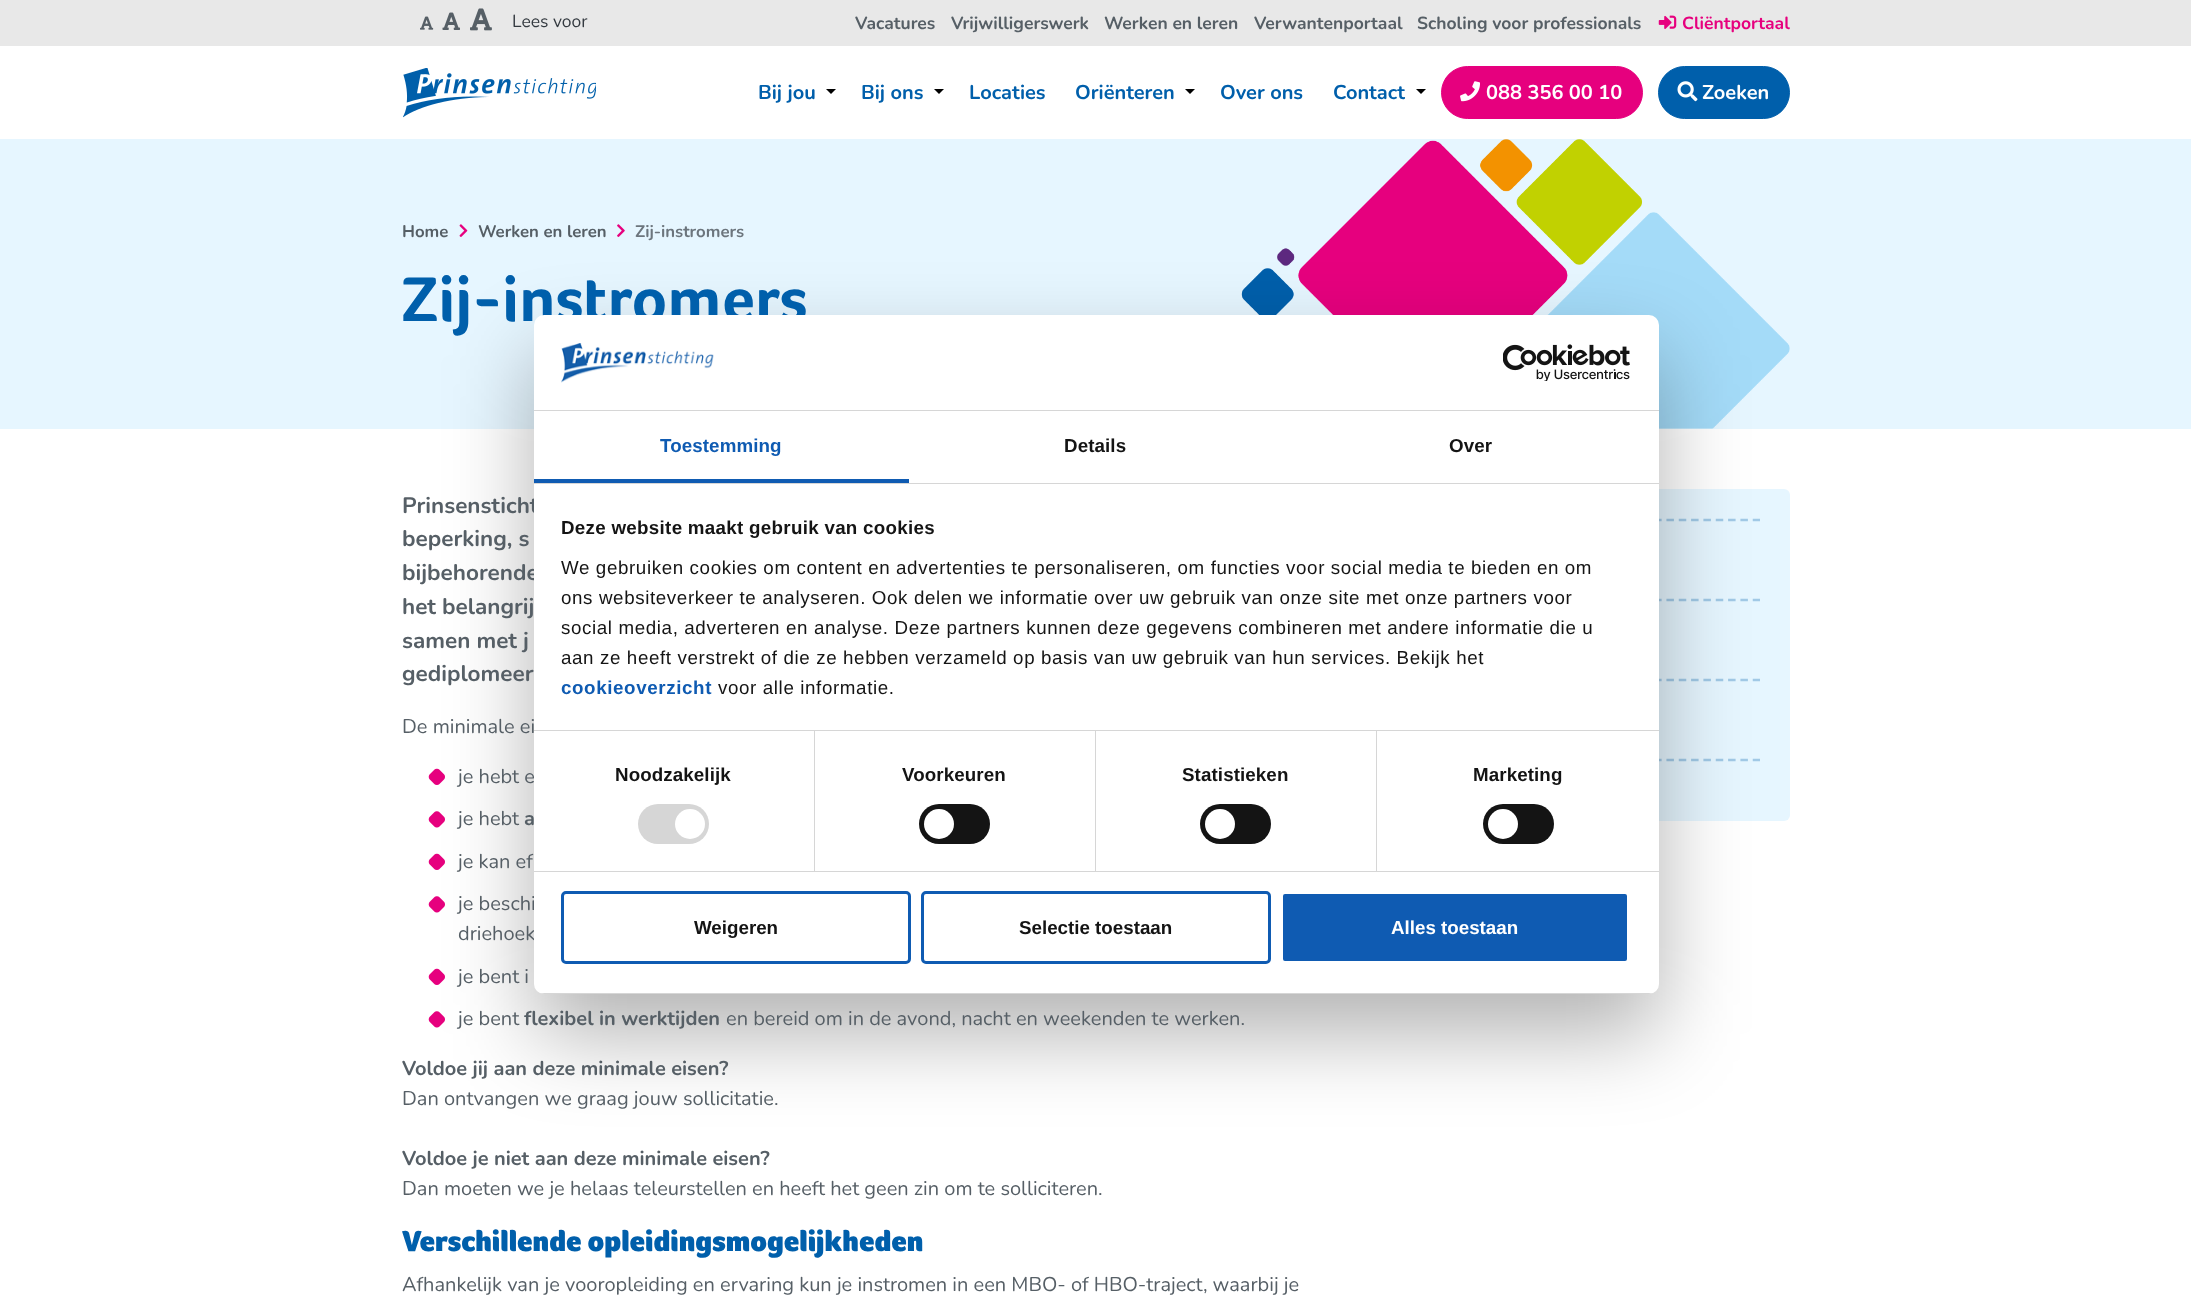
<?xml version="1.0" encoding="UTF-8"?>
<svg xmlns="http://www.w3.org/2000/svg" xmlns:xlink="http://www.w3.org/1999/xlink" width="2191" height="1308">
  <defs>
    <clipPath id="clip1"><rect x="534" y="315" width="1125" height="679" rx="10" /></clipPath>
  </defs>
  <rect width="100%" height="100%" fill="#ffffff" />
  <rect width="2191" height="46" fill="#e8e8e8" />
  <image x="420" y="16" width="14" height="14" xlink:href="image1.png" />
  <image x="442" y="12" width="18" height="18" xlink:href="image2.png" />
  <image x="470" y="8" width="22" height="23" xlink:href="image3.png" />
  <image x="1658" y="15" width="19" height="14" xlink:href="image4.png" />
  <image x="403" y="68" width="193" height="50" xlink:href="image5.png" />
  <path d="M 826 89 h 10 l -5 5 z" fill="#000000" />
  <path d="M 934 89 h 10 l -5 5 z" fill="#000000" />
  <path d="M 1185 89 h 10 l -5 5 z" fill="#000000" />
  <path d="M 1416 89 h 10 l -5 5 z" fill="#000000" />
  <rect x="1441.5" y="66.5" width="201" height="52" rx="26" fill="#e6007e" stroke="#e6007e" />
  <image x="1460" y="81" width="20" height="21" xlink:href="image6.png" />
  <rect x="1658.5" y="66.5" width="131" height="52" rx="26" fill="#005fab" stroke="#005fab" />
  <image x="1677" y="81" width="21" height="21" xlink:href="image7.png" />
  <rect y="139" width="2191" height="290" fill="#e6f6ff" />
  <image x="459" y="224" width="9" height="13" xlink:href="image8.png" />
  <image x="617" y="224" width="8" height="13" xlink:href="image9.png" />
  <image x="1241" y="139" width="549" height="290" xlink:href="image10.png" />
  <image x="428" y="768" width="17" height="17" xlink:href="image11.png" />
  <image x="428" y="811" width="17" height="17" xlink:href="image12.png" />
  <image x="428" y="853" width="17" height="17" xlink:href="image11.png" />
  <image x="428" y="896" width="17" height="17" xlink:href="image12.png" />
  <image x="428" y="968" width="17" height="17" xlink:href="image11.png" />
  <image x="428" y="1011" width="17" height="17" xlink:href="image12.png" />
  <rect x="1378" y="489" width="412" height="332" rx="6" fill="#e6f6ff" />
  <path d="M 1407.5 520 h 352.5" fill="none" stroke="#a1c9e6" stroke-width="2.5" stroke-dasharray="7.5 4.83" />
  <path d="M 1407.5 600 h 352.5" fill="none" stroke="#a1c9e6" stroke-width="2.5" stroke-dasharray="7.5 4.83" />
  <path d="M 1407.5 680 h 352.5" fill="none" stroke="#a1c9e6" stroke-width="2.5" stroke-dasharray="7.5 4.83" />
  <path d="M 1407.5 760 h 352.5" fill="none" stroke="#a1c9e6" stroke-width="2.5" stroke-dasharray="7.5 4.83" />
  <rect x="534" y="355" width="1125" height="679" rx="10" fill="#000000" fill-opacity="0.3" filter="blur(42.5px)" />
  <text x="512" y="27" style="font-family: Nunito; font-size: 17.5px; fill: #343a40">Lees voor</text>
  <text x="855" y="29" style="font-family: Nunito; font-size: 17.5px; font-weight: bold; fill: #565f66">Vacatures</text>
  <text x="951" y="29" style="font-family: Nunito; font-size: 17.5px; font-weight: bold; fill: #565f66">Vrijwilligerswerk</text>
  <text x="1104" y="29" style="font-family: Nunito; font-size: 17.5px; font-weight: bold; fill: #565f66">Werken en leren</text>
  <text x="1254" y="29" style="font-family: Nunito; font-size: 17.5px; font-weight: bold; fill: #565f66">Verwantenportaal</text>
  <text x="1417" y="29" style="font-family: Nunito; font-size: 17.5px; font-weight: bold; fill: #565f66">Scholing voor professionals</text>
  <text x="1682" y="29" style="font-family: Nunito; font-size: 17.5px; font-weight: bold; fill: #e6007e">Cliëntportaal</text>
  <text x="758" y="99" style="font-family: Nunito; font-size: 20px; font-weight: bold; fill: #005fab">Bij jou</text>
  <text x="861" y="99" style="font-family: Nunito; font-size: 20px; font-weight: bold; fill: #005fab">Bij ons</text>
  <text x="969" y="99" style="font-family: Nunito; font-size: 20px; font-weight: bold; fill: #005fab">Locaties</text>
  <text x="1075" y="99" style="font-family: Nunito; font-size: 20px; font-weight: bold; fill: #005fab">Oriënteren</text>
  <text x="1220" y="99" style="font-family: Nunito; font-size: 20px; font-weight: bold; fill: #005fab">Over ons</text>
  <text x="1333" y="99" style="font-family: Nunito; font-size: 20px; font-weight: bold; fill: #005fab">Contact</text>
  <text x="1486" y="99" style="font-family: Nunito; font-size: 20px; font-weight: bold; fill: #ffffff">088 356 00 10</text>
  <text x="1702" y="99" style="font-family: Nunito; font-size: 20px; font-weight: bold; fill: #ffffff">Zoeken</text>
  <text x="402" y="237" style="font-family: Nunito; font-size: 16.75px; font-weight: bold; fill: #565f66">Home</text>
  <text x="478" y="237" style="font-family: Nunito; font-size: 16.75px; font-weight: bold; fill: #565f66">Werken en leren</text>
  <text x="635" y="237" style="font-family: Nunito; font-size: 16.75px; font-weight: bold; fill: #6c757d">Zij-instromers</text>
  <text x="402" y="321" style="font-family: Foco; font-size: 65px; font-weight: bold; fill: #005fab">Zij-instromers</text>
  <text x="402" y="513" style="font-family: Nunito; font-size: 22.5px; font-weight: bold; fill: #565f66">Prinsensticht</text>
  <text x="402" y="546" style="font-family: Nunito; font-size: 22.5px; font-weight: bold; fill: #565f66">beperking, s</text>
  <text x="402" y="580" style="font-family: Nunito; font-size: 22.5px; font-weight: bold; fill: #565f66">bijbehorende</text>
  <text x="402" y="614" style="font-family: Nunito; font-size: 22.5px; font-weight: bold; fill: #565f66">het belangrij</text>
  <text x="402" y="648" style="font-family: Nunito; font-size: 22.5px; font-weight: bold; fill: #565f66">samen met j</text>
  <text x="402" y="681" style="font-family: Nunito; font-size: 22.5px; font-weight: bold; fill: #565f66">gediplomeer</text>
  <text x="402" y="733" style="font-family: Nunito; font-size: 20px; fill: #565f66">De minimale ei</text>
  <text x="458" y="783" style="font-family: Nunito; font-size: 20px; fill: #565f66">je hebt e</text>
  <text x="458" y="825" style="font-family: Nunito; font-size: 20px; fill: #565f66">je hebt</text>
  <text x="524" y="825" style="font-family: Nunito; font-size: 20px; font-weight: bold; fill: #565f66">a</text>
  <text x="458" y="868" style="font-family: Nunito; font-size: 20px; fill: #565f66">je kan ef</text>
  <text x="458" y="910" style="font-family: Nunito; font-size: 20px; fill: #565f66">je beschi</text>
  <text x="458" y="940" style="font-family: Nunito; font-size: 20px; fill: #565f66">driehoek</text>
  <text x="458" y="983" style="font-family: Nunito; font-size: 20px; fill: #565f66">je bent i</text>
  <text x="458" y="1025" style="font-family: Nunito; font-size: 20px; fill: #565f66">je bent</text>
  <text x="524" y="1025" style="font-family: Nunito; font-size: 20px; font-weight: bold; fill: #565f66">flexibel in werktijden</text>
  <text x="726" y="1025" style="font-family: Nunito; font-size: 20px; fill: #565f66">en bereid om in de avond, nacht en weekenden te werken.</text>
  <text x="402" y="1075" style="font-family: Nunito; font-size: 20px; font-weight: bold; fill: #565f66">Voldoe jij aan deze minimale eisen?</text>
  <text x="402" y="1105" style="font-family: Nunito; font-size: 20px; fill: #565f66">Dan ontvangen we graag jouw sollicitatie.</text>
  <text x="402" y="1165" style="font-family: Nunito; font-size: 20px; font-weight: bold; fill: #565f66">Voldoe je niet aan deze minimale eisen?</text>
  <text x="402" y="1195" style="font-family: Nunito; font-size: 20px; fill: #565f66">Dan moeten we je helaas teleurstellen en heeft het geen zin om te solliciteren.</text>
  <text x="402" y="1251" style="font-family: Foco; font-size: 30px; font-weight: 900; fill: #005fab">Verschillende opleidingsmogelijkheden</text>
  <text x="402" y="1291" style="font-family: Nunito; font-size: 20px; fill: #565f66">Afhankelijk van je vooropleiding en ervaring kun je instromen in een MBO- of HBO-traject, waarbij je</text>
  <rect x="534" y="315" width="1125" height="679" rx="10" fill="#ffffff" />
  <rect x="534" y="410" width="1125" height="1" fill="#d6d6d6" />
  <image x="561" y="343" width="153" height="40" xlink:href="image13.png" />
  <image x="1503" y="344" width="127" height="37" xlink:href="image14.png" />
  <rect x="534" y="483" width="1125" height="1" fill="#d6d6d6" />
  <rect x="534" y="479" width="375" height="4" fill="#0f5bb2" />
  <text x="660" y="452" style="font-family: Liberation Sans; font-size: 18.75px; font-weight: bold; letter-spacing: 0.1px; fill: #0f5bb2">Toestemming</text>
  <text x="1064" y="452" style="font-family: Liberation Sans; font-size: 18.75px; font-weight: bold; letter-spacing: 0.1px; fill: #141414">Details</text>
  <text x="1449" y="452" style="font-family: Liberation Sans; font-size: 18.75px; font-weight: bold; letter-spacing: 0.1px; fill: #141414">Over</text>
  <rect x="534" y="730" width="1125" height="1" fill="#d6d6d6" />
  <text x="561" y="534" style="font-family: Liberation Sans; font-size: 18.75px; font-weight: bold; letter-spacing: 0.3px; fill: #141414">Deze website maakt gebruik van cookies</text>
  <text x="561" y="574" style="font-family: Liberation Sans; font-size: 18.75px; letter-spacing: 0.62px; fill: #141414">We gebruiken cookies om content en advertenties te personaliseren, om functies voor social media te bieden en om</text>
  <text x="561" y="604" style="font-family: Liberation Sans; font-size: 18.75px; letter-spacing: 0.62px; fill: #141414">ons websiteverkeer te analyseren. Ook delen we informatie over uw gebruik van onze site met onze partners voor</text>
  <text x="561" y="634" style="font-family: Liberation Sans; font-size: 18.75px; letter-spacing: 0.62px; fill: #141414">social media, adverteren en analyse. Deze partners kunnen deze gegevens combineren met andere informatie die u</text>
  <text x="561" y="664" style="font-family: Liberation Sans; font-size: 18.75px; letter-spacing: 0.62px; fill: #141414">aan ze heeft verstrekt of die ze hebben verzameld op basis van uw gebruik van hun services. Bekijk het</text>
  <text x="561" y="694" style="font-family: Liberation Sans; font-size: 18.75px; font-weight: bold; letter-spacing: 0.62px; fill: #0f5bb2">cookieoverzicht</text>
  <text x="718" y="694" style="font-family: Liberation Sans; font-size: 18.75px; letter-spacing: 0.62px; fill: #141414">voor alle informatie.</text>
  <rect x="534" y="871" width="1125" height="1" fill="#d6d6d6" />
  <rect x="814" y="731" width="1" height="140" fill="#d6d6d6" />
  <text x="615" y="781" style="font-family: Liberation Sans; font-size: 18.75px; font-weight: bold; letter-spacing: 0.1px; fill: #141414">Noodzakelijk</text>
  <rect x="638" y="804" width="71" height="40" rx="20" fill="#d6d6d6" />
  <circle cx="690" cy="824" r="15" fill="#ffffff" />
  <rect x="1095" y="731" width="1" height="140" fill="#d6d6d6" />
  <text x="902" y="781" style="font-family: Liberation Sans; font-size: 18.75px; font-weight: bold; letter-spacing: 0.1px; fill: #141414">Voorkeuren</text>
  <rect x="919" y="804" width="71" height="40" rx="20" fill="#141414" />
  <circle cx="939" cy="824" r="15" fill="#ffffff" />
  <rect x="1376" y="731" width="1" height="140" fill="#d6d6d6" />
  <text x="1182" y="781" style="font-family: Liberation Sans; font-size: 18.75px; font-weight: bold; letter-spacing: 0.1px; fill: #141414">Statistieken</text>
  <rect x="1200" y="804" width="71" height="40" rx="20" fill="#141414" />
  <circle cx="1220" cy="824" r="15" fill="#ffffff" />
  <text x="1473" y="781" style="font-family: Liberation Sans; font-size: 18.75px; font-weight: bold; letter-spacing: 0.1px; fill: #141414">Marketing</text>
  <rect x="1483" y="804" width="71" height="40" rx="20" fill="#141414" />
  <circle cx="1503" cy="824" r="15" fill="#ffffff" />
  <g clip-path="url(#clip1)">
    <rect x="534" y="993" width="1125" height="1" fill="#d6d6d6" />
  </g>
  <rect x="562.5" y="892.5" width="347" height="70" rx="3.5" fill="none" stroke="#0f5bb2" stroke-width="3" />
  <text x="694" y="934" style="font-family: Liberation Sans; font-size: 18.75px; font-weight: bold; fill: #141414">Weigeren</text>
  <rect x="922.5" y="892.5" width="347" height="70" rx="3.5" fill="none" stroke="#0f5bb2" stroke-width="3" />
  <text x="1019" y="934" style="font-family: Liberation Sans; font-size: 18.75px; font-weight: bold; fill: #141414">Selectie toestaan</text>
  <rect x="1281.5" y="892.5" width="347" height="70" rx="3.5" fill="#0f5bb2" stroke="#ffffff" stroke-width="3" />
  <text x="1391" y="934" style="font-family: Liberation Sans; font-size: 18.75px; font-weight: bold; fill: #ffffff">Alles toestaan</text>
</svg>
